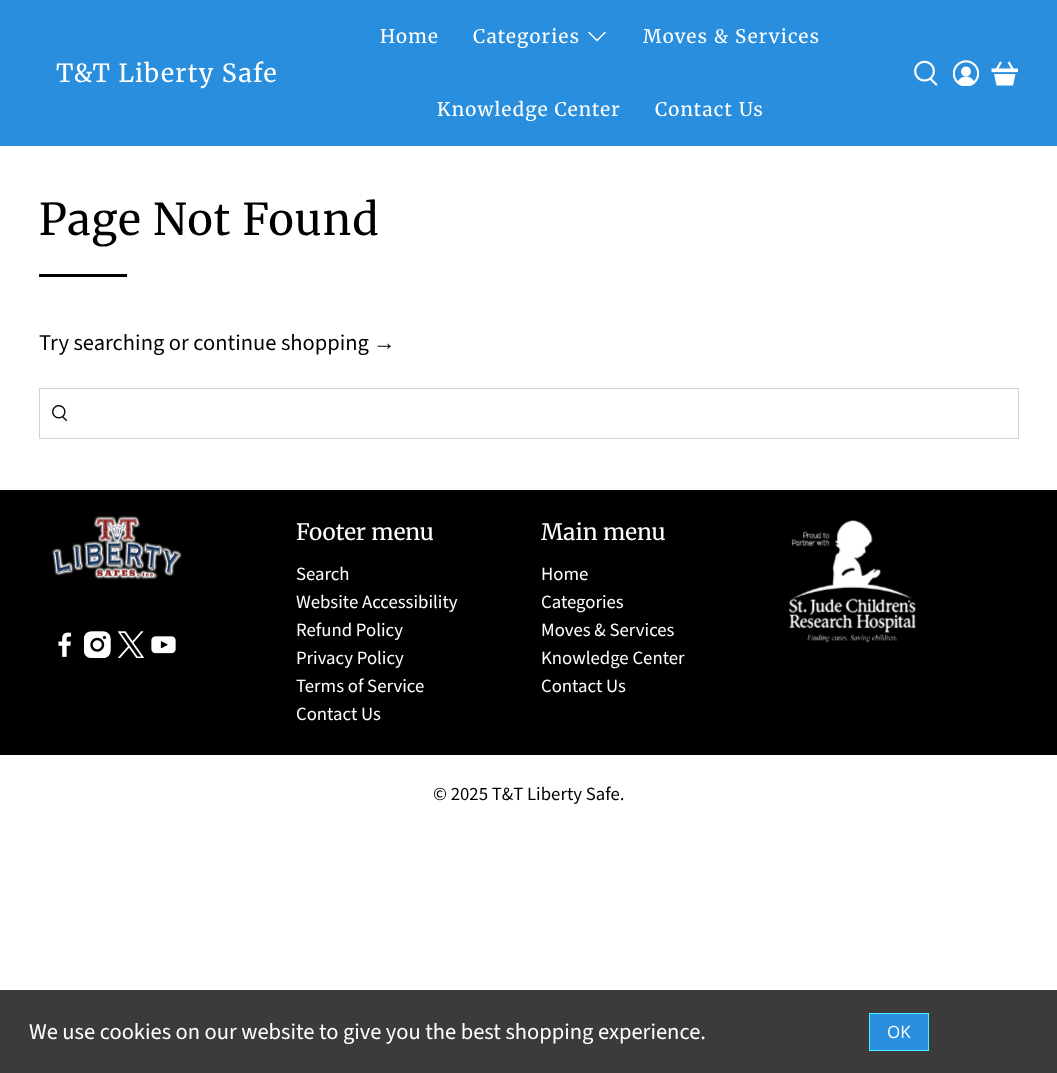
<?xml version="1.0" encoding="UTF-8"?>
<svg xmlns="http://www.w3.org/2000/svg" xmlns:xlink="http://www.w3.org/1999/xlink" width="1057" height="1073">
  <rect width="100%" height="100%" fill="#ffffff" />
  <rect width="1057" height="146" fill="#288edd" />
  <path d="M 597 41.5 l -9 -9 l 1 -1 l 8 8 l 8 -8 l 1 1 z" fill="#ffffff" />
  <image x="914" y="60" width="24" height="26" xlink:href="image1.png" />
  <image x="953" y="60" width="26" height="26" xlink:href="image2.png" />
  <image x="991" y="61" width="27" height="25" xlink:href="image3.png" />
  <rect x="39" y="274" width="88" height="3" fill="#000000" />
  <rect x="39.5" y="388.5" width="979" height="50" fill="none" stroke="#d3d3d3" />
  <image x="52" y="405" width="16" height="17" xlink:href="image4.png" />
  <rect y="490" width="1057" height="265" fill="#000000" />
  <image x="52" y="516" width="130" height="64" xlink:href="image5.png" />
  <image x="58" y="632" width="14" height="25" xlink:href="image6.png" />
  <image x="84" y="631" width="27" height="27" xlink:href="image7.png" />
  <image x="118" y="631" width="26" height="27" xlink:href="image8.png" />
  <image x="151" y="636" width="25" height="18" xlink:href="image9.png" />
  <image x="788" y="519" width="128" height="124" xlink:href="image10.png" />
  <rect y="990" width="1057" height="83" fill="#3b3b3b" />
  <rect x="869.5" y="1013.5" width="59" height="37" fill="#288edd" stroke="#49f2f8" />
  <text x="56" y="82" style="font-family: 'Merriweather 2'; font-size: 25px; letter-spacing: 1.25px; fill: #ffffff">T&amp;T Liberty Safe</text>
  <text x="380" y="43" style="font-family: 'Merriweather 2'; font-size: 18.75px; letter-spacing: 1.25px; fill: #ffffff">Home</text>
  <text x="473" y="43" style="font-family: 'Merriweather 2'; font-size: 18.75px; letter-spacing: 1.25px; fill: #ffffff">Categories</text>
  <text x="643" y="43" style="font-family: 'Merriweather 2'; font-size: 18.75px; letter-spacing: 1.25px; fill: #ffffff">Moves &amp; Services</text>
  <text x="437" y="116" style="font-family: 'Merriweather 2'; font-size: 18.75px; letter-spacing: 1.25px; fill: #ffffff">Knowledge Center</text>
  <text x="655" y="116" style="font-family: 'Merriweather 2'; font-size: 18.75px; letter-spacing: 1.25px; fill: #ffffff">Contact Us</text>
  <text x="39" y="235" style="font-family: Merriweather; font-size: 43.75px; letter-spacing: 1.25px; fill: #000000">Page Not Found</text>
  <text x="39" y="350" style="font-family: Source Sans Pro; font-size: 22.5px; fill: #000000">Try searching or continue shopping</text>
  <text x="373" y="350" style="font-family: Liberation Sans; font-size: 22.5px; fill: #000000">→</text>
  <text x="296" y="540" style="font-family: 'Merriweather 2'; font-size: 22.5px; fill: #ffffff">Footer menu</text>
  <text x="296" y="580" style="font-family: Source Sans Pro; font-size: 18.75px; fill: #ffffff">Search</text>
  <text x="296" y="608" style="font-family: Source Sans Pro; font-size: 18.75px; fill: #ffffff">Website Accessibility</text>
  <text x="296" y="636" style="font-family: Source Sans Pro; font-size: 18.75px; fill: #ffffff">Refund Policy</text>
  <text x="296" y="664" style="font-family: Source Sans Pro; font-size: 18.75px; fill: #ffffff">Privacy Policy</text>
  <text x="296" y="692" style="font-family: Source Sans Pro; font-size: 18.75px; fill: #ffffff">Terms of Service</text>
  <text x="296" y="720" style="font-family: Source Sans Pro; font-size: 18.75px; fill: #ffffff">Contact Us</text>
  <text x="541" y="540" style="font-family: 'Merriweather 2'; font-size: 22.5px; fill: #ffffff">Main menu</text>
  <text x="541" y="580" style="font-family: Source Sans Pro; font-size: 18.75px; fill: #ffffff">Home</text>
  <text x="541" y="608" style="font-family: Source Sans Pro; font-size: 18.75px; fill: #ffffff">Categories</text>
  <text x="541" y="636" style="font-family: Source Sans Pro; font-size: 18.75px; fill: #ffffff">Moves &amp; Services</text>
  <text x="541" y="664" style="font-family: Source Sans Pro; font-size: 18.75px; fill: #ffffff">Knowledge Center</text>
  <text x="541" y="692" style="font-family: Source Sans Pro; font-size: 18.75px; fill: #ffffff">Contact Us</text>
  <text x="433" y="800" style="font-family: Source Sans Pro; font-size: 18.75px; fill: #000000">© 2025 T&amp;T Liberty Safe.</text>
  <text x="29" y="1039" style="font-family: Source Sans Pro; font-size: 22.5px; fill: #ffffff">We use cookies on our website to give you the best shopping experience.</text>
  <text x="887" y="1038" style="font-family: Open Sans; font-size: 17px; fill: #ffffff">OK</text>
</svg>
